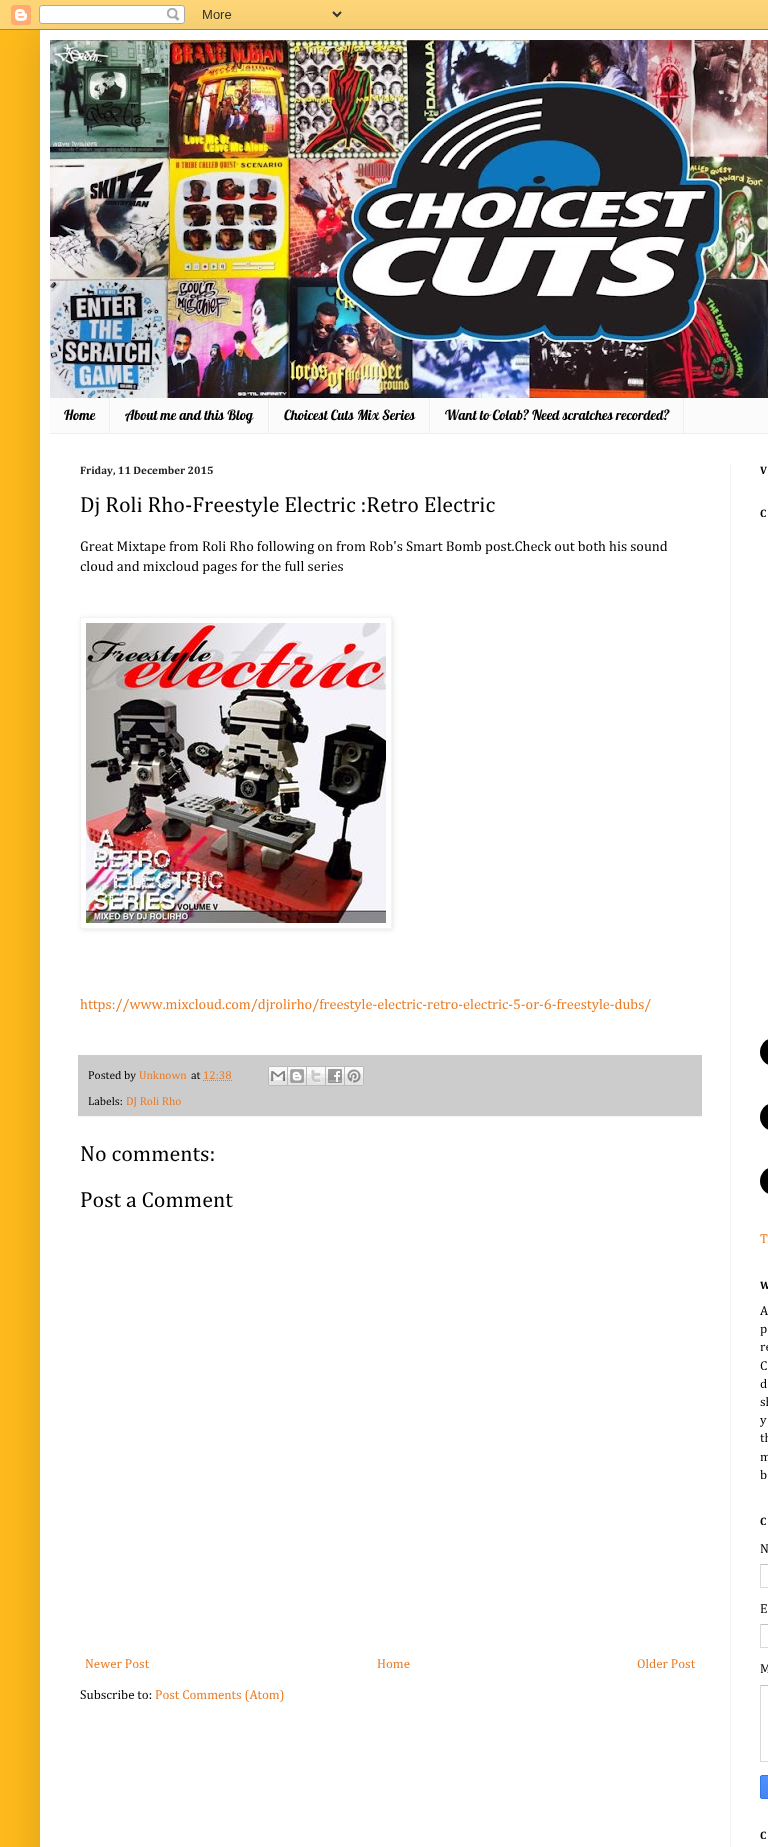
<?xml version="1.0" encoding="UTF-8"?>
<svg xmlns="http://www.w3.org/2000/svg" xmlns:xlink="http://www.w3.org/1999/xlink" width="768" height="1847">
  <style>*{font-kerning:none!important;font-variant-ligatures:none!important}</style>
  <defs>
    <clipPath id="clip1"><path d="M 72 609 h 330 v 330 h -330 z m 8 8 h 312 v 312 h -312 z" clip-rule="evenodd" /></clipPath>
    <linearGradient id="g1" gradientUnits="userSpaceOnUse" x1="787" y1="1776" x2="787" y2="1798"><stop offset="0" stop-color="#4d90fe" /><stop offset="1" stop-color="#4787ed" /></linearGradient>
  </defs>
  <rect width="100%" height="100%" fill="#ffbb1c" />
  <rect x="40" y="30" width="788" height="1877" fill="#000000" fill-opacity="0.15" filter="blur(20px)" />
  <image x="0" y="0" width="768" height="30" xlink:href="image1.png" />
  <rect x="40" y="30" width="728" height="1817" fill="#ffffff" />
  <image x="50" y="40" width="718" height="358" xlink:href="image2.png" />
  <rect x="50" y="398" width="718" height="35" fill="#fbfbfb" />
  <rect x="50" y="433" width="718" height="1" fill="#eeeeee" />
  <rect x="109" y="398" width="1" height="35" fill="#eeeeee" />
  <rect x="268" y="398" width="1" height="35" fill="#eeeeee" />
  <rect x="110" y="398" width="1" height="35" fill="#ffffff" />
  <rect x="429" y="398" width="1" height="35" fill="#eeeeee" />
  <rect x="269" y="398" width="1" height="35" fill="#ffffff" />
  <rect x="683" y="398" width="1" height="35" fill="#eeeeee" />
  <rect x="430" y="398" width="1" height="35" fill="#ffffff" />
  <rect x="730" y="464" width="1" height="1383" fill="#f4f4f4" />
  <g clip-path="url(#clip1)">
    <rect x="81" y="618" width="312" height="312" fill="#000000" fill-opacity="0.1" filter="blur(2.5px)" />
  </g>
  <rect x="80.5" y="617.5" width="311" height="311" fill="none" stroke="#f4f4f4" />
  <image x="86" y="623" width="300" height="300" xlink:href="image3.png" />
  <rect x="78" y="1055" width="624" height="61" fill="#cccccc" />
  <rect x="78" y="1116" width="624" height="1" fill="#f4f4f4" />
  <path d="M 203 1080.5 h 29" fill="none" stroke="#ec7b22" stroke-dasharray="1 1" />
  <image x="268" y="1066" width="20" height="20" xlink:href="image4.png" />
  <image x="288" y="1066" width="19" height="20" xlink:href="image5.png" />
  <image x="307" y="1066" width="19" height="20" xlink:href="image6.png" />
  <image x="326" y="1066" width="19" height="20" xlink:href="image7.png" />
  <image x="345" y="1066" width="19" height="20" xlink:href="image8.png" />
  <image x="760" y="1039" width="8" height="26" xlink:href="image9.png" />
  <image x="760" y="1104" width="8" height="26" xlink:href="image9.png" />
  <image x="760" y="1168" width="8" height="26" xlink:href="image9.png" />
  <rect x="760" y="1564" width="8" height="1" fill="#c0c0c0" />
  <rect x="760" y="1587" width="8" height="1" fill="#d9d9d9" />
  <rect x="760" y="1564" width="1" height="24" fill="#d9d9d9" />
  <rect x="760" y="1624" width="8" height="1" fill="#c0c0c0" />
  <rect x="760" y="1647" width="8" height="1" fill="#d9d9d9" />
  <rect x="760" y="1624" width="1" height="24" fill="#d9d9d9" />
  <rect x="760" y="1685" width="8" height="1" fill="#c0c0c0" />
  <rect x="760" y="1761" width="8" height="1" fill="#d9d9d9" />
  <rect x="760" y="1685" width="1" height="77" fill="#d9d9d9" />
  <rect x="760" y="1776" width="8" height="22" fill="url(#g1)" />
  <rect x="760.5" y="1775.5" width="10" height="23" rx="1.5" fill="none" stroke="#3079ed" />
  <text x="64" y="420" style="font-family: Lobster; font-size: 14px; fill: #000000">Home</text>
  <text x="125" y="420" style="font-family: Lobster; font-size: 14px; fill: #000000">About me and this Blog</text>
  <text x="284" y="420" style="font-family: Lobster; font-size: 14px; fill: #000000">Choicest Cuts Mix Series</text>
  <text x="445" y="420" style="font-family: Lobster; font-size: 14px; fill: #000000">Want to Colab? Need scratches recorded?</text>
  <text x="80" y="474" style="font-family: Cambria; font-size: 11px; font-weight: bold; fill: #222222">Friday, 11 December 2015</text>
  <text x="80" y="512" style="font-family: Cambria; font-size: 22px; fill: #000000">Dj Roli Rho-Freestyle Electric :Retro Electric</text>
  <text x="80" y="551" style="font-family: Cambria; font-size: 14.3px; fill: #000000">Great Mixtape from Roli Rho following on from Rob's Smart Bomb post.Check out both his sound</text>
  <text x="80" y="571" style="font-family: Cambria; font-size: 14.3px; fill: #000000">cloud and mixcloud pages for the full series</text>
  <text x="80" y="1009" style="font-family: Cambria; font-size: 14.3px; fill: #ec7b22">https://www.mixcloud.com/djrolirho/freestyle-electric-retro-electric-5-or-6-freestyle-dubs/</text>
  <text x="88" y="1079" style="font-family: Cambria; font-size: 11.5px; fill: #000000">Posted by</text>
  <text x="139" y="1079" style="font-family: Cambria; font-size: 11.5px; fill: #ec7b22">Unknown</text>
  <text x="191" y="1079" style="font-family: Cambria; font-size: 11.5px; fill: #000000">at</text>
  <text x="203" y="1079" style="font-family: Cambria; font-size: 11.5px; fill: #ec7b22">12:38</text>
  <text x="88" y="1105" style="font-family: Cambria; font-size: 11.5px; fill: #000000">Labels:</text>
  <text x="126" y="1105" style="font-family: Cambria; font-size: 11.5px; fill: #ec7b22">DJ Roli Rho</text>
  <text x="80" y="1161" style="font-family: Cambria; font-size: 22px; fill: #000000">No comments:</text>
  <text x="80" y="1207" style="font-family: Cambria; font-size: 22px; fill: #000000">Post a Comment</text>
  <text x="85" y="1668" style="font-family: Cambria; font-size: 13px; fill: #ec7b22">Newer Post</text>
  <text x="377" y="1668" style="font-family: Cambria; font-size: 13px; fill: #ec7b22">Home</text>
  <text x="637" y="1668" style="font-family: Cambria; font-size: 13px; fill: #ec7b22">Older Post</text>
  <text x="80" y="1699" style="font-family: Cambria; font-size: 13px; fill: #000000">Subscribe to:</text>
  <text x="155" y="1699" style="font-family: Cambria; font-size: 13px; fill: #ec7b22">Post Comments (Atom)</text>
  <text x="760" y="474" style="font-family: Cambria; font-size: 11px; font-weight: bold; fill: #000000">V</text>
  <text x="760" y="517" style="font-family: Cambria; font-size: 11px; font-weight: bold; fill: #000000">C</text>
  <text x="760" y="1243" style="font-family: Cambria; font-size: 13px; fill: #ec7b22">T</text>
  <text x="760" y="1289" style="font-family: Cambria; font-size: 11px; font-weight: bold; fill: #000000">W</text>
  <text x="760" y="1315" style="font-family: Cambria; font-size: 13px; fill: #000000">A</text>
  <text x="760" y="1333" style="font-family: Cambria; font-size: 13px; fill: #000000">p</text>
  <text x="760" y="1351" style="font-family: Cambria; font-size: 13px; fill: #000000">re</text>
  <text x="760" y="1370" style="font-family: Cambria; font-size: 13px; fill: #000000">C</text>
  <text x="760" y="1388" style="font-family: Cambria; font-size: 13px; fill: #000000">d</text>
  <text x="760" y="1406" style="font-family: Cambria; font-size: 13px; fill: #000000">sh</text>
  <text x="760" y="1424" style="font-family: Cambria; font-size: 13px; fill: #000000">y</text>
  <text x="760" y="1442" style="font-family: Cambria; font-size: 13px; fill: #000000">th</text>
  <text x="760" y="1461" style="font-family: Cambria; font-size: 13px; fill: #000000">m</text>
  <text x="760" y="1479" style="font-family: Cambria; font-size: 13px; fill: #000000">b</text>
  <text x="760" y="1525" style="font-family: Cambria; font-size: 11px; font-weight: bold; fill: #000000">C</text>
  <text x="760" y="1553" style="font-family: Cambria; font-size: 13px; fill: #000000">N</text>
  <text x="760" y="1613" style="font-family: Cambria; font-size: 13px; fill: #000000">E</text>
  <text x="760" y="1673" style="font-family: Cambria; font-size: 13px; fill: #000000">M</text>
  <text x="760" y="1839" style="font-family: Cambria; font-size: 11px; font-weight: bold; fill: #000000">C</text>
</svg>
